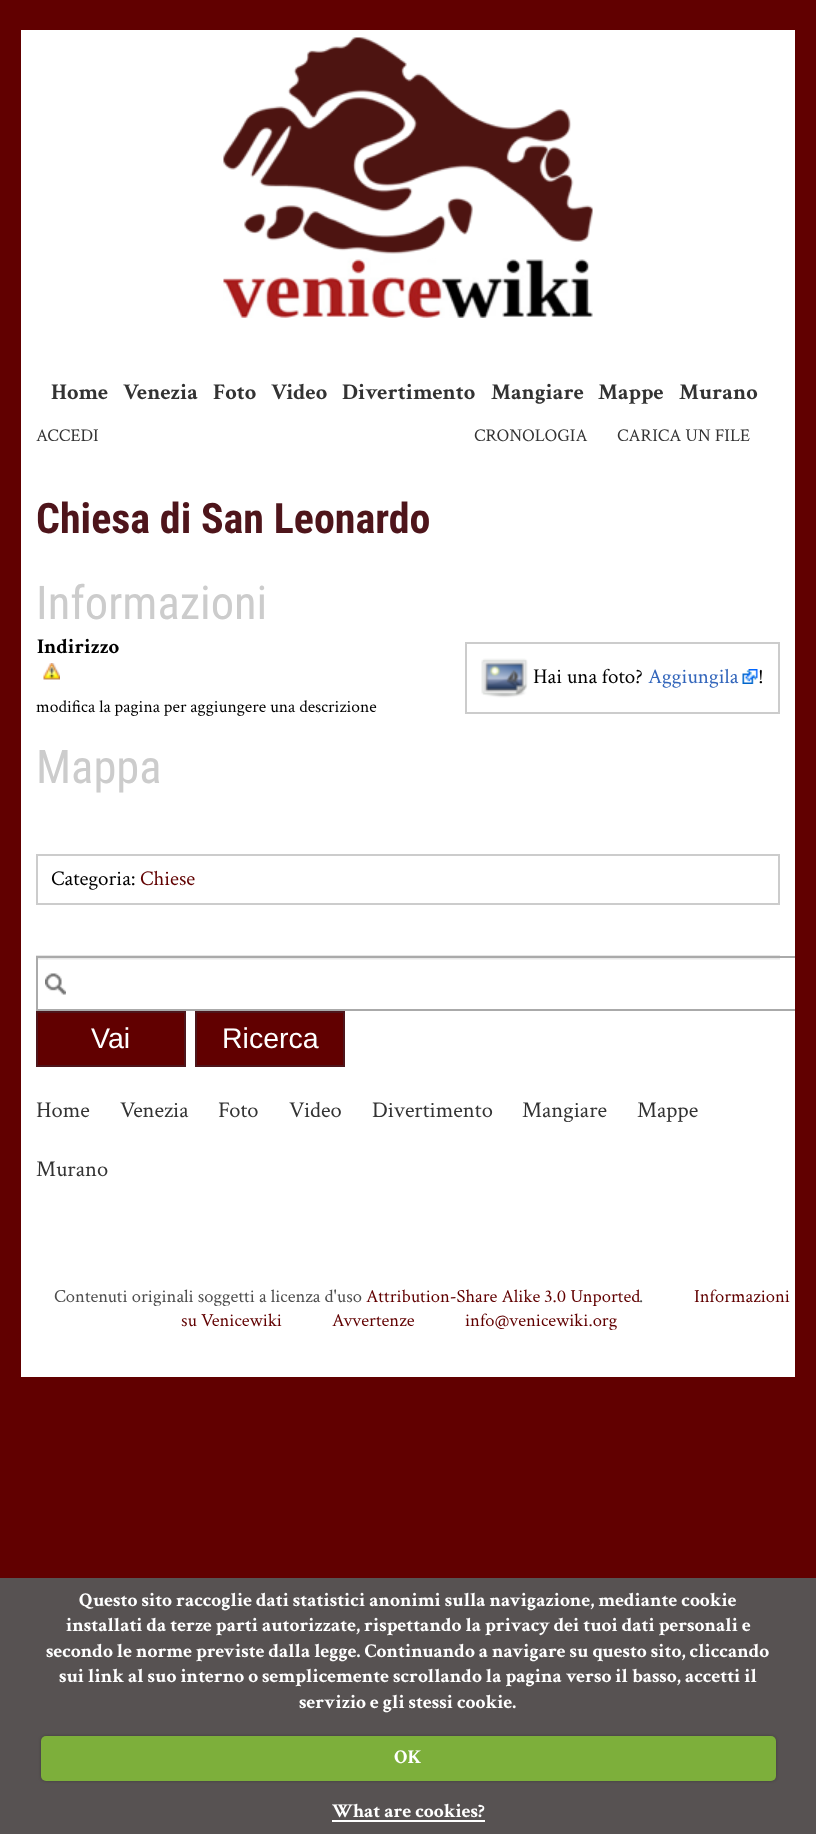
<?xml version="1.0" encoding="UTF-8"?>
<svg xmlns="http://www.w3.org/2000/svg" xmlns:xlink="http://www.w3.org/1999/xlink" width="816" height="1834">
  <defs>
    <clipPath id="clip1"><rect x="21" y="318" width="774" height="926" /></clipPath>
  </defs>
  <rect width="100%" height="100%" fill="#610000" />
  <rect x="21" y="30" width="774" height="1214" fill="#ffffff" />
  <image x="223" y="37" width="370" height="281" xlink:href="image1.png" />
  <image x="43" y="663" width="17" height="17" xlink:href="image2.png" />
  <rect x="466" y="643" width="313" height="70" fill="none" stroke="#cccccc" stroke-width="2" />
  <image x="481" y="658" width="47" height="40" xlink:href="image3.png" />
  <image x="742" y="669" width="16" height="15" xlink:href="image4.png" />
  <rect x="37" y="855" width="742" height="49" fill="none" stroke="#cccccc" stroke-width="2" />
  <image x="36" y="955" width="744" height="5" xlink:href="image5.png" />
  <image x="45" y="973" width="21" height="22" xlink:href="image6.png" />
  <g clip-path="url(#clip1)">
    <rect x="37" y="957" width="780" height="53" fill="none" stroke="#aaaaaa" stroke-width="2" />
  </g>
  <rect x="37" y="1012" width="148" height="54" fill="#610000" stroke="#4e151b" stroke-width="2" />
  <rect x="196" y="1012" width="148" height="54" fill="#610000" stroke="#4e151b" stroke-width="2" />
  <rect x="21" y="1244" width="774" height="133" fill="#ffffff" />
  <rect y="1578" width="816" height="256" fill="#575252" />
  <rect x="41" y="1736" width="735" height="45" rx="5" fill="#000000" fill-opacity="0.25" filter="blur(1.5px)" />
  <rect x="41" y="1736" width="735" height="45" rx="5" fill="#7daf3b" />
  <rect x="332" y="1820" width="153" height="2" fill="#ffffff" />
  <text x="51" y="399" style="font-family: Crimson Text; font-size: 22.5px; font-weight: bold; fill: #333333">Home</text>
  <text x="123" y="399" style="font-family: Crimson Text; font-size: 22.5px; font-weight: bold; fill: #333333">Venezia</text>
  <text x="213" y="399" style="font-family: Crimson Text; font-size: 22.5px; font-weight: bold; fill: #333333">Foto</text>
  <text x="271" y="399" style="font-family: Crimson Text; font-size: 22.5px; font-weight: bold; fill: #333333">Video</text>
  <text x="342" y="399" style="font-family: Crimson Text; font-size: 22.5px; font-weight: bold; fill: #333333">Divertimento</text>
  <text x="491" y="399" style="font-family: Crimson Text; font-size: 22.5px; font-weight: bold; fill: #333333">Mangiare</text>
  <text x="598" y="399" style="font-family: Crimson Text; font-size: 22.5px; font-weight: bold; fill: #333333">Mappe</text>
  <text x="679" y="399" style="font-family: Crimson Text; font-size: 22.5px; font-weight: bold; fill: #333333">Murano</text>
  <text x="36" y="441" style="font-family: Crimson Text; font-size: 18px; fill: #333333">ACCEDI</text>
  <text x="474" y="441" style="font-family: Crimson Text; font-size: 18px; fill: #333333">CRONOLOGIA</text>
  <text x="617" y="441" style="font-family: Crimson Text; font-size: 18px; fill: #333333">CARICA UN FILE</text>
  <text x="36" y="533" style="font-family: Roboto Condensed; font-size: 42px; font-weight: bold; fill: #4e151b">Chiesa di San Leonardo</text>
  <text x="36" y="619" style="font-family: Roboto Condensed; font-size: 46.5px; fill: #cccccc">Informazioni</text>
  <text x="37" y="653" style="font-family: Crimson Text; font-size: 21px; font-weight: bold; fill: #000000">Indirizzo</text>
  <text x="533" y="683" style="font-family: Crimson Text; font-size: 21px; fill: #000000">Hai una foto?</text>
  <text x="648" y="683" style="font-family: Crimson Text; font-size: 21px; fill: #3366bb">Aggiungila</text>
  <text x="758" y="683" style="font-family: Crimson Text; font-size: 21px; fill: #000000">!</text>
  <text x="36" y="712" style="font-family: Crimson Text; font-size: 17.5px; fill: #000000">modifica la pagina per aggiungere una descrizione</text>
  <text x="36" y="783" style="font-family: Roboto Condensed; font-size: 46.5px; fill: #cccccc">Mappa</text>
  <text x="51" y="885" style="font-family: Crimson Text; font-size: 21px; fill: #000000">Categoria:</text>
  <text x="140" y="885" style="font-family: Crimson Text; font-size: 21px; fill: #610000">Chiese</text>
  <text x="91" y="1048" style="font-family: Liberation Sans; font-size: 28.5px; fill: #ffffff">Vai</text>
  <text x="222" y="1048" style="font-family: Liberation Sans; font-size: 28.5px; fill: #ffffff">Ricerca</text>
  <text x="36" y="1117" style="font-family: Crimson Text; font-size: 22.5px; fill: #333333">Home</text>
  <text x="120" y="1117" style="font-family: Crimson Text; font-size: 22.5px; fill: #333333">Venezia</text>
  <text x="218" y="1117" style="font-family: Crimson Text; font-size: 22.5px; fill: #333333">Foto</text>
  <text x="289" y="1117" style="font-family: Crimson Text; font-size: 22.5px; fill: #333333">Video</text>
  <text x="372" y="1117" style="font-family: Crimson Text; font-size: 22.5px; fill: #333333">Divertimento</text>
  <text x="522" y="1117" style="font-family: Crimson Text; font-size: 22.5px; fill: #333333">Mangiare</text>
  <text x="637" y="1117" style="font-family: Crimson Text; font-size: 22.5px; fill: #333333">Mappe</text>
  <text x="36" y="1176" style="font-family: Crimson Text; font-size: 22.5px; fill: #333333">Murano</text>
  <text x="54" y="1302" style="font-family: Crimson Text; font-size: 18.5px; fill: #4e4e4e">Contenuti originali soggetti a licenza d'uso</text>
  <text x="366" y="1302" style="font-family: Crimson Text; font-size: 18.5px; fill: #610000">Attribution-Share Alike 3.0 Unported</text>
  <text x="639" y="1302" style="font-family: Crimson Text; font-size: 18.5px; fill: #4e4e4e">.</text>
  <text x="694" y="1302" style="font-family: Crimson Text; font-size: 18.5px; fill: #610000">Informazioni</text>
  <text x="181" y="1326" style="font-family: Crimson Text; font-size: 18.5px; fill: #610000">su Venicewiki</text>
  <text x="332" y="1326" style="font-family: Crimson Text; font-size: 18.5px; fill: #610000">Avvertenze</text>
  <text x="465" y="1326" style="font-family: Crimson Text; font-size: 18.5px; fill: #610000">info@venicewiki.org</text>
  <text x="79" y="1606" style="font-family: Crimson Text; font-size: 19.5px; font-weight: bold; fill: #ffffff">Questo sito raccoglie dati statistici anonimi sulla navigazione, mediante cookie</text>
  <text x="66" y="1631" style="font-family: Crimson Text; font-size: 19.5px; font-weight: bold; fill: #ffffff">installati da terze parti autorizzate, rispettando la privacy dei tuoi dati personali e</text>
  <text x="46" y="1657" style="font-family: Crimson Text; font-size: 19.5px; font-weight: bold; fill: #ffffff">secondo le norme previste dalla legge. Continuando a navigare su questo sito, cliccando</text>
  <text x="59" y="1682" style="font-family: Crimson Text; font-size: 19.5px; font-weight: bold; fill: #ffffff">sui link al suo interno o semplicemente scrollando la pagina verso il basso, accetti il</text>
  <text x="299" y="1708" style="font-family: Crimson Text; font-size: 19.5px; font-weight: bold; fill: #ffffff">servizio e gli stessi cookie.</text>
  <text x="394" y="1763" style="font-family: Crimson Text; font-size: 19.5px; font-weight: bold; fill: #ffffff">OK</text>
  <text x="332" y="1817" style="font-family: Crimson Text; font-size: 19.5px; font-weight: bold; fill: #ffffff">What are cookies?</text>
</svg>
